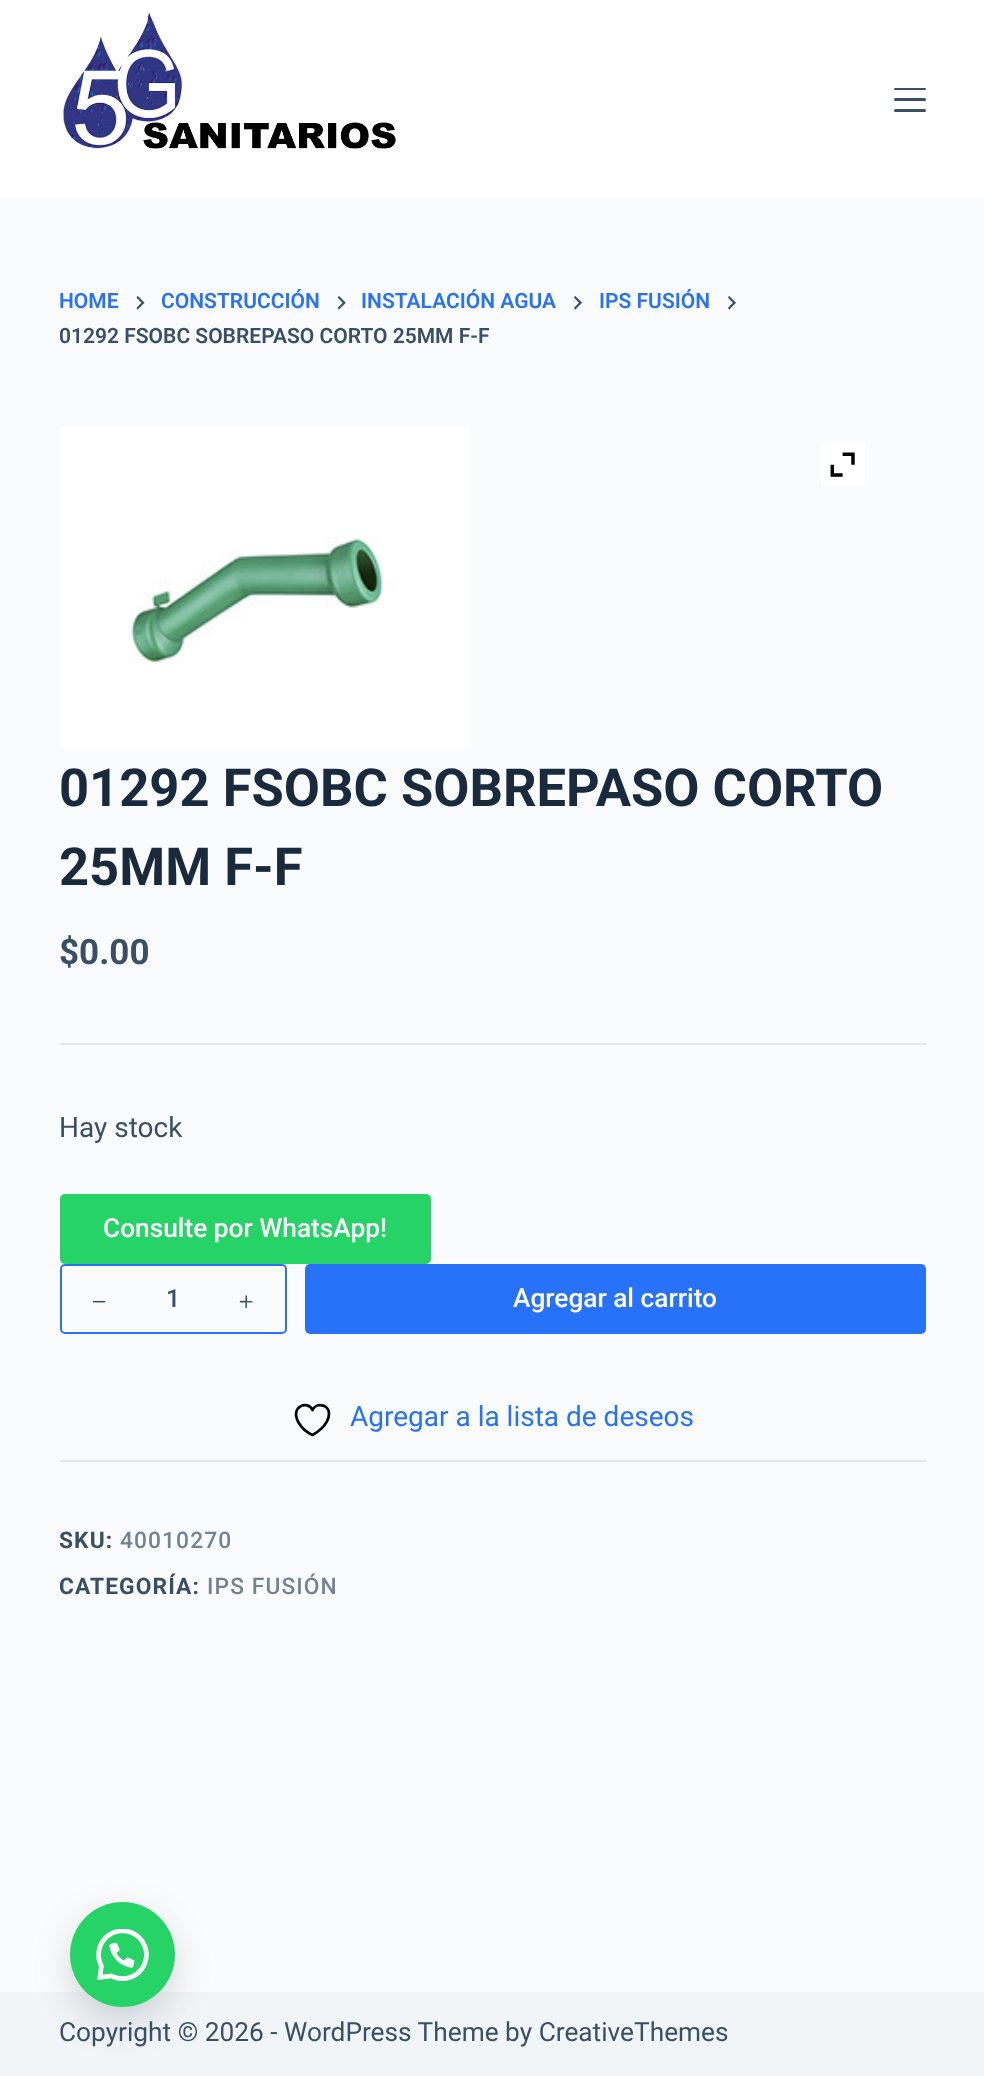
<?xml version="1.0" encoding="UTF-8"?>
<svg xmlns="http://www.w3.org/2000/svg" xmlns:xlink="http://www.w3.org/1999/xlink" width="984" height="2076">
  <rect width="100%" height="100%" fill="#fafbfc" />
  <rect width="984" height="198" fill="#ffffff" />
  <image x="63" y="12" width="333" height="137" xlink:href="image1.png" />
  <rect x="894" y="88" width="32" height="2" rx="1" fill="#3a4f66" />
  <rect x="894" y="98" width="32" height="3" rx="1.5" fill="#3a4f66" />
  <rect x="894" y="109" width="32" height="3" rx="1.5" fill="#3a4f66" />
  <image x="136" y="296" width="9" height="14" xlink:href="image2.png" />
  <image x="337" y="296" width="9" height="14" xlink:href="image3.png" />
  <image x="574" y="296" width="8" height="14" xlink:href="image4.png" />
  <image x="728" y="296" width="8" height="14" xlink:href="image4.png" />
  <image x="60" y="426" width="410" height="323" xlink:href="image5.png" />
  <rect x="821" y="443" width="44" height="44" fill="#ffffff" />
  <image x="830" y="452" width="25" height="25" xlink:href="image6.png" />
  <rect x="60" y="1043" width="866" height="2" fill="#e1e8ed" />
  <rect x="60" y="1194" width="371" height="70" rx="5" fill="#25d366" />
  <rect x="61" y="1265" width="225" height="68" rx="4" fill="none" stroke="#2872fa" stroke-width="2" />
  <image x="92" y="1300" width="14" height="3" xlink:href="image7.png" />
  <image x="239" y="1295" width="14" height="13" xlink:href="image8.png" />
  <rect x="305" y="1264" width="621" height="70" rx="5" fill="#2872fa" />
  <path d="M 329 1413.5 c 0 -9 -13 -11.5 -16.5 -3.5 c -4.5 -10 -23 -4 -14 12.5 c 3 5 8.5 10 14 12.5 c 0 0 16.5 -8.5 16.5 -21.5 z" fill="none" stroke="#000000" stroke-width="2.7" stroke-linecap="round" stroke-linejoin="round" />
  <rect x="60" y="1460" width="866" height="2" fill="#e1e8ed" />
  <rect y="1992" width="984" height="84" fill="#f2f5f7" />
  <rect x="79" y="1925" width="87" height="88" rx="43.5" fill="#2d3e4f" fill-opacity="0.3" filter="blur(22px)" />
  <circle cx="122.5" cy="1954.5" r="52.5" fill="#25d366" />
  <image x="96" y="1929" width="53" height="52" xlink:href="image9.png" />
  <text x="59" y="308" style="font-family: Roboto; font-size: 21px; font-weight: 600; fill: #2872fa">HOME</text>
  <text x="161" y="308" style="font-family: Roboto; font-size: 21px; font-weight: 600; fill: #2872fa">CONSTRUCCIÓN</text>
  <text x="361" y="308" style="font-family: Roboto; font-size: 21px; font-weight: 600; fill: #2872fa">INSTALACIÓN AGUA</text>
  <text x="599" y="308" style="font-family: Roboto; font-size: 21px; font-weight: 600; fill: #2872fa">IPS FUSIÓN</text>
  <text x="59" y="343" style="font-family: Roboto; font-size: 21px; font-weight: 600; fill: #3a4f66">01292 FSOBC SOBREPASO CORTO 25MM F-F</text>
  <text x="59" y="806" style="font-family: Roboto; font-size: 52.5px; font-weight: bold; fill: #192a3d">01292 FSOBC SOBREPASO CORTO</text>
  <text x="59" y="885" style="font-family: Roboto; font-size: 52.5px; font-weight: bold; fill: #192a3d">25MM F-F</text>
  <text x="59" y="964" style="font-family: Roboto; font-size: 35px; font-weight: bold; fill: #3a4f66">$0.00</text>
  <text x="59" y="1137" style="font-family: Roboto; font-size: 28px; fill: #3a4f66">Hay stock</text>
  <text x="103" y="1237" style="font-family: Roboto; font-size: 26.25px; font-weight: 500; fill: #ffffff">Consulte por WhatsApp!</text>
  <text x="166" y="1307" style="font-family: Roboto; font-size: 25px; font-weight: 500; fill: #3a4f66">1</text>
  <text x="513" y="1307" style="font-family: Roboto; font-size: 26.25px; font-weight: 500; fill: #ffffff">Agregar al carrito</text>
  <text x="350" y="1426" style="font-family: Roboto; font-size: 28px; fill: #2872fa">Agregar a la lista de deseos</text>
  <text x="59" y="1548" style="font-family: Roboto; font-size: 22.75px; font-weight: bold; letter-spacing: 1.1px; fill: #3a4f66">SKU:</text>
  <text x="120" y="1548" style="font-family: Roboto; font-size: 22.75px; font-weight: 500; letter-spacing: 1.1px; fill: #748393">40010270</text>
  <text x="59" y="1594" style="font-family: Roboto; font-size: 22.75px; font-weight: bold; letter-spacing: 1.1px; fill: #3a4f66">CATEGORÍA:</text>
  <text x="207" y="1594" style="font-family: Roboto; font-size: 22.75px; font-weight: 500; letter-spacing: 1.1px; fill: #748393">IPS FUSIÓN</text>
  <text x="59" y="2041" style="font-family: Roboto; font-size: 26.25px; fill: #3a4f66">Copyright © 2026 - WordPress Theme by CreativeThemes</text>
</svg>
